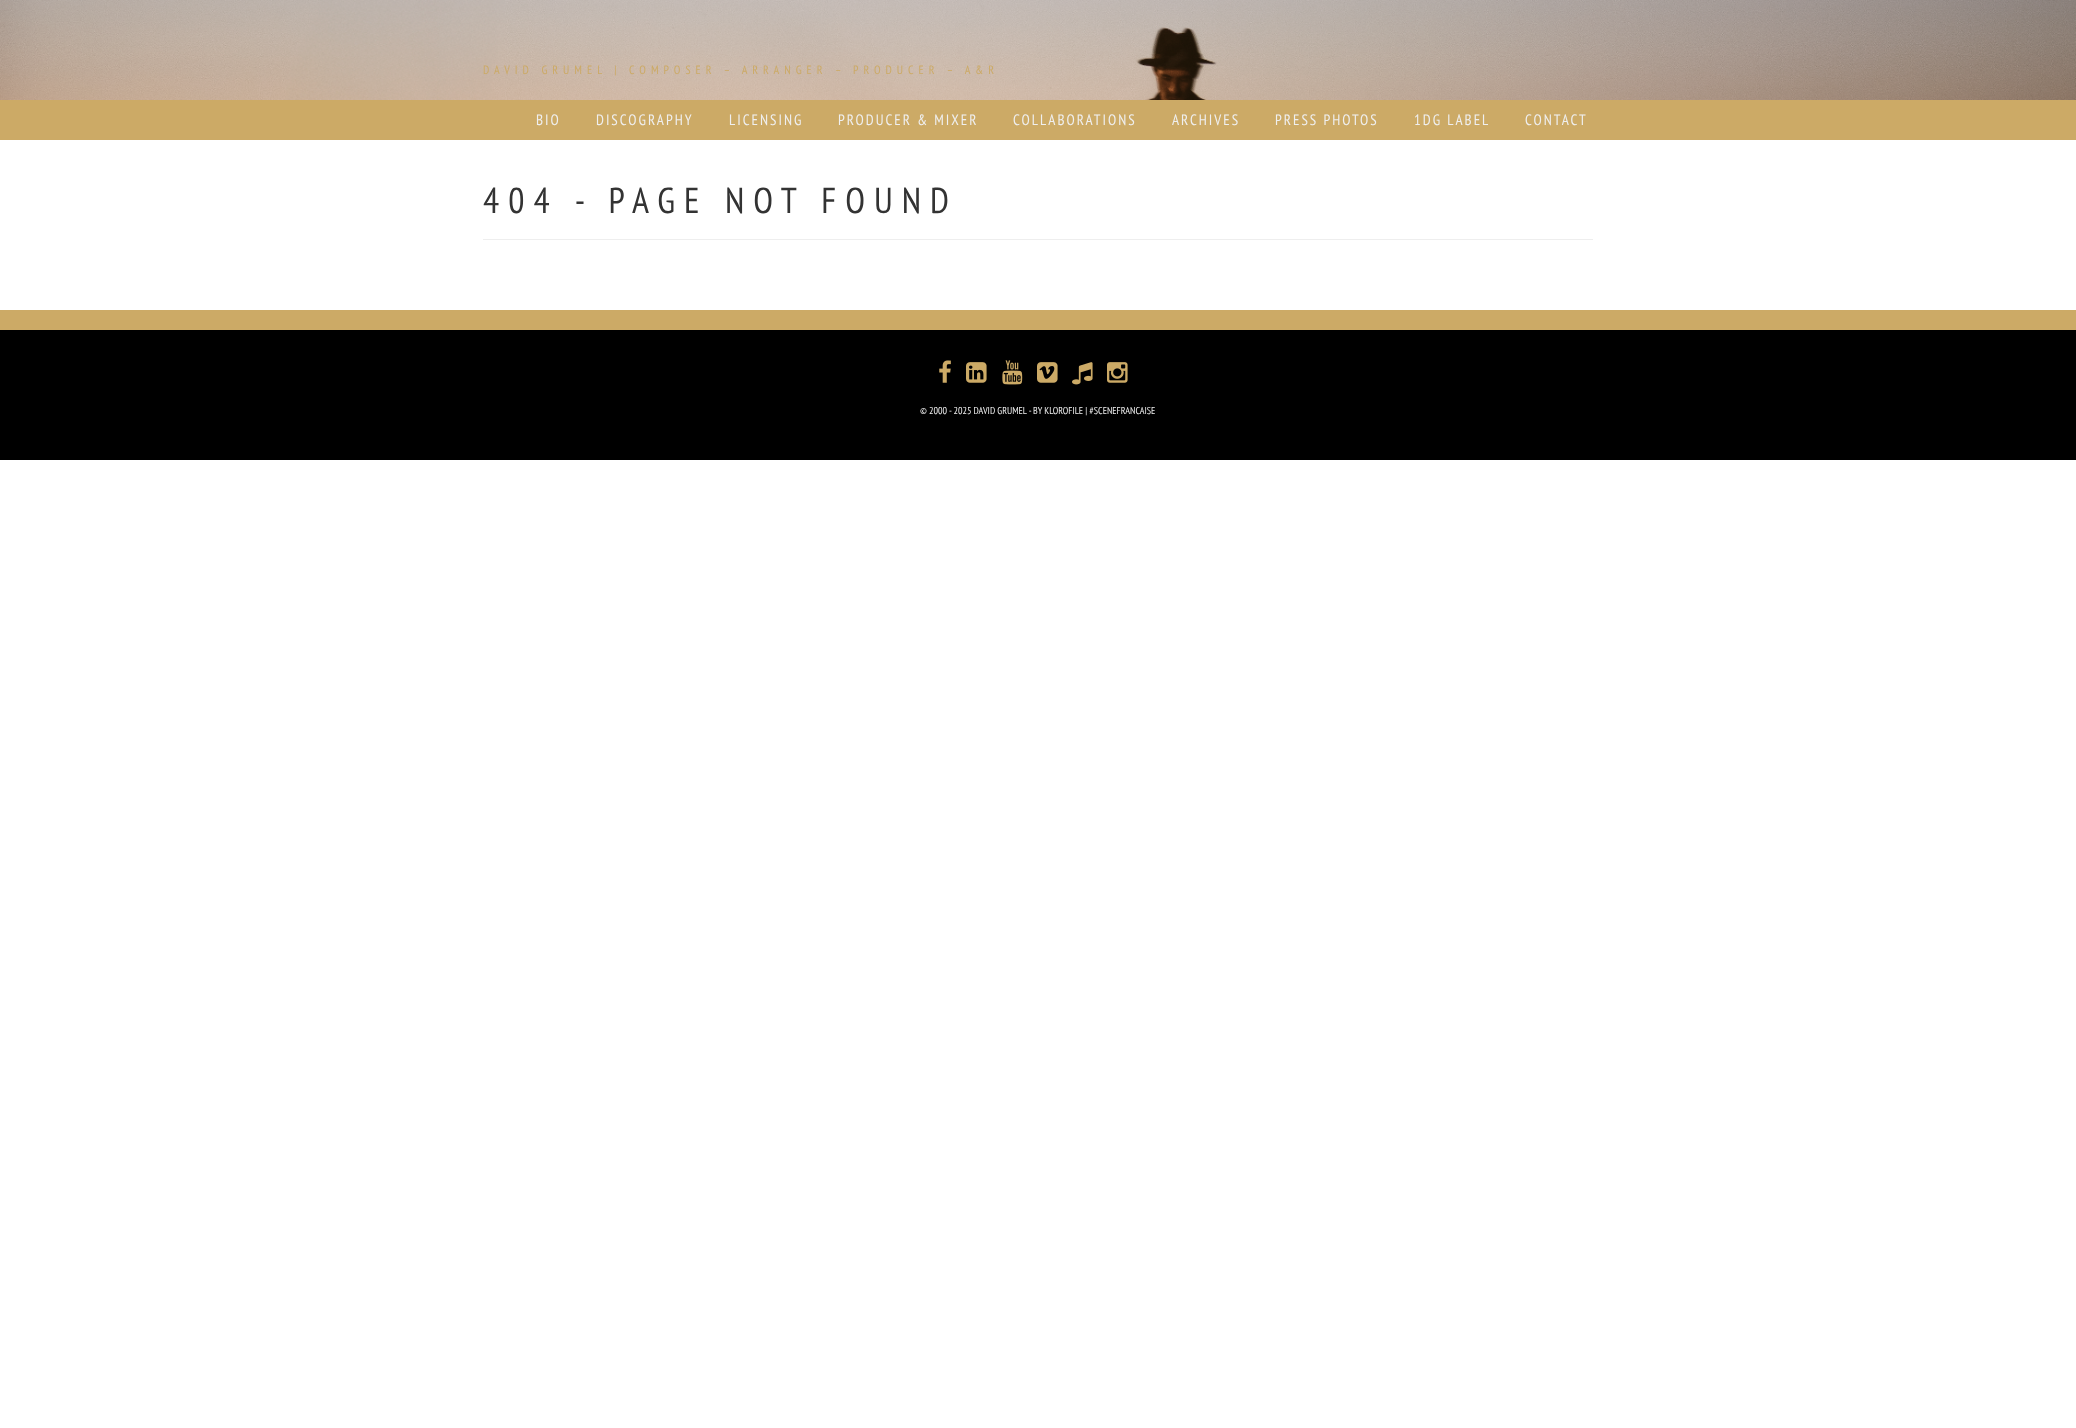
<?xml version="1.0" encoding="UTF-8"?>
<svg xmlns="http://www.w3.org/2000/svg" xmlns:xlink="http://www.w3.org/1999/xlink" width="2076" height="1428">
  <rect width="100%" height="100%" fill="#ffffff" />
  <image x="0" y="0" width="2076" height="100" xlink:href="image1.png" />
  <rect y="100" width="2076" height="40" fill="#ccaa66" />
  <rect x="483" y="239" width="1110" height="1" fill="#eeeeee" />
  <rect y="330" width="2076" height="130" fill="#000000" />
  <rect y="310" width="2076" height="20" fill="#ccaa66" />
  <image x="939" y="360" width="12" height="23" xlink:href="image2.png" />
  <image x="966" y="362" width="21" height="21" xlink:href="image3.png" />
  <image x="1002" y="360" width="21" height="25" xlink:href="image4.png" />
  <image x="1037" y="362" width="21" height="21" xlink:href="image5.png" />
  <image x="1072" y="362" width="21" height="23" xlink:href="image6.png" />
  <image x="1107" y="362" width="21" height="21" xlink:href="image7.png" />
  <text x="483" y="74" style="font-family: PT Sans Narrow; font-size: 12px; letter-spacing: 5px; fill: #ccaa66">DAVID GRUMEL | COMPOSER – ARRANGER – PRODUCER – A&amp;R</text>
  <text x="536" y="125" style="font-family: PT Sans Narrow; font-size: 15px; letter-spacing: 2px; fill: #efefef">BIO</text>
  <text x="596" y="125" style="font-family: PT Sans Narrow; font-size: 15px; letter-spacing: 2px; fill: #efefef">DISCOGRAPHY</text>
  <text x="729" y="125" style="font-family: PT Sans Narrow; font-size: 15px; letter-spacing: 2px; fill: #efefef">LICENSING</text>
  <text x="838" y="125" style="font-family: PT Sans Narrow; font-size: 15px; letter-spacing: 2px; fill: #efefef">PRODUCER &amp; MIXER</text>
  <text x="1013" y="125" style="font-family: PT Sans Narrow; font-size: 15px; letter-spacing: 2px; fill: #efefef">COLLABORATIONS</text>
  <text x="1172" y="125" style="font-family: PT Sans Narrow; font-size: 15px; letter-spacing: 2px; fill: #efefef">ARCHIVES</text>
  <text x="1275" y="125" style="font-family: PT Sans Narrow; font-size: 15px; letter-spacing: 2px; fill: #efefef">PRESS PHOTOS</text>
  <text x="1414" y="125" style="font-family: PT Sans Narrow; font-size: 15px; letter-spacing: 2px; fill: #efefef">1DG LABEL</text>
  <text x="1525" y="125" style="font-family: PT Sans Narrow; font-size: 15px; letter-spacing: 2px; fill: #efefef">CONTACT</text>
  <text x="483" y="213" style="font-family: PT Sans Narrow; font-size: 36px; letter-spacing: 9px; fill: #333333">404 - PAGE NOT FOUND</text>
  <text x="920" y="414" style="font-family: PT Sans Narrow; font-size: 10px; fill: #efefef">© 2000 - 2025 DAVID GRUMEL - BY KLOROFILE | #SCENEFRANCAISE</text>
</svg>
